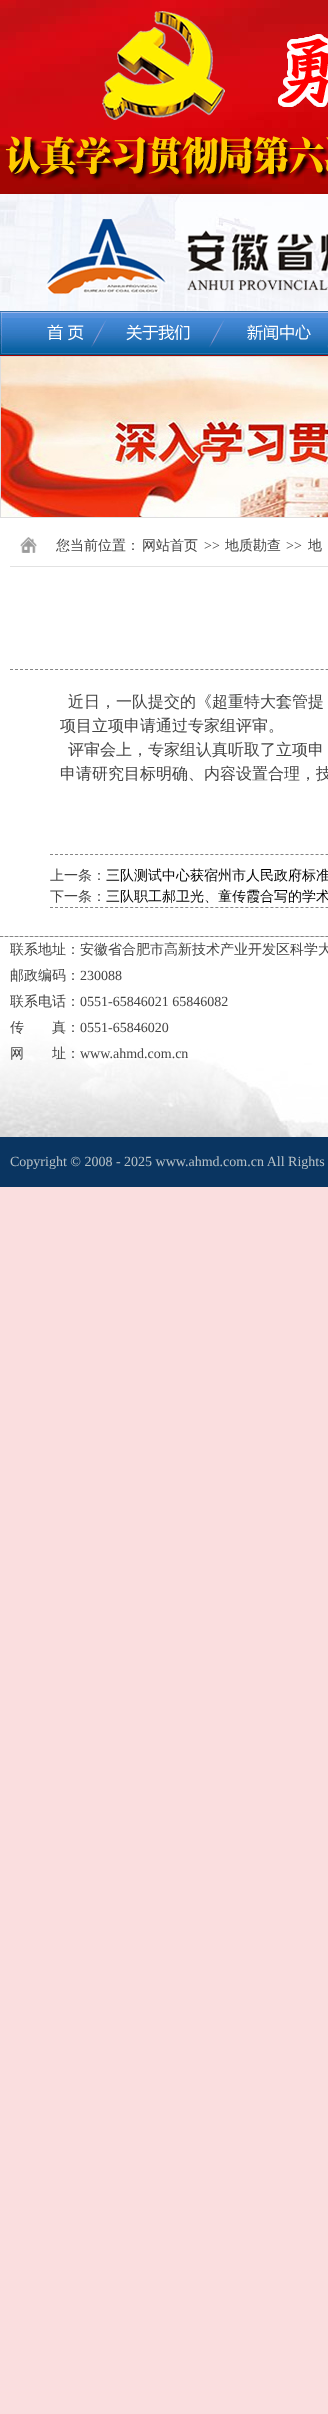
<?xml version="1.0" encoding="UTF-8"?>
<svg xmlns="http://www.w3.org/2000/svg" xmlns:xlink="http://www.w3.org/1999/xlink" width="328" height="2414">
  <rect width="100%" height="100%" fill="#fadedf" />
  <image x="0" y="0" width="328" height="356" xlink:href="image1.png" />
  <image x="5" y="11" width="323" height="170" xlink:href="image2.png" />
  <image x="0" y="194" width="328" height="117" xlink:href="image3.png" />
  <image x="46" y="219" width="282" height="75" xlink:href="image4.png" />
  <image x="0" y="311" width="328" height="44" xlink:href="image5.png" />
  <rect x="0.5" y="356.5" width="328" height="161" fill="none" stroke="#dddddd" />
  <image x="1" y="357" width="327" height="160" xlink:href="image6.png" />
  <rect y="518" width="328" height="418" fill="#ffffff" />
  <rect x="10" y="566" width="318" height="1" fill="#e2e2e2" />
  <image x="20" y="537" width="17" height="16" xlink:href="image7.png" />
  <path d="M 10 669.5 h 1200" fill="none" stroke="#858585" stroke-dasharray="3 2.01" />
  <path d="M 50 854.5 h 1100" fill="none" stroke="#858585" stroke-dasharray="3 2.01" />
  <path d="M 50 907.5 h 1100" fill="none" stroke="#858585" stroke-dasharray="3 2.01" />
  <image x="0" y="936" width="328" height="201" xlink:href="image8.png" />
  <path d="M 0 936.5 h 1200" fill="none" stroke="#858585" stroke-dasharray="3 2.01" />
  <rect y="1137" width="328" height="50" fill="#0a3561" />
  <text x="56" y="550" style="font-family: WenQuanYi Zen Hei; font-size: 14px; font-weight: 500; fill: #444444">您当前位置：</text>
  <text x="142" y="550" style="font-family: WenQuanYi Zen Hei; font-size: 14px; font-weight: 500; fill: #444444">网站首页</text>
  <text x="204" y="550" style="font-family: Liberation Serif; font-size: 14px; fill: #444444">&gt;&gt;</text>
  <text x="225" y="550" style="font-family: WenQuanYi Zen Hei; font-size: 14px; font-weight: 500; fill: #444444">地质勘查</text>
  <text x="286" y="550" style="font-family: Liberation Serif; font-size: 14px; fill: #444444">&gt;&gt;</text>
  <text x="308" y="550" style="font-family: WenQuanYi Zen Hei; font-size: 14px; font-weight: 500; fill: #444444">地</text>
  <text x="68" y="707" style="font-family: WenQuanYi Zen Hei; font-size: 16px; font-weight: 500; fill: #444444">近日，一队提交的《超重特大套管提</text>
  <text x="60" y="731" style="font-family: WenQuanYi Zen Hei; font-size: 16px; font-weight: 500; fill: #444444">项目立项申请通过专家组评审。</text>
  <text x="68" y="755" style="font-family: WenQuanYi Zen Hei; font-size: 16px; font-weight: 500; fill: #444444">评审会上，专家组认真听取了立项申</text>
  <text x="60" y="779" style="font-family: WenQuanYi Zen Hei; font-size: 16px; font-weight: 500; fill: #444444">申请研究目标明确、内容设置合理，技</text>
  <text x="50" y="880" style="font-family: WenQuanYi Zen Hei; font-size: 14px; font-weight: 500; fill: #444444">上一条：</text>
  <text x="106" y="880" style="font-family: WenQuanYi Zen Hei; font-size: 14px; font-weight: 500; fill: #000000">三队测试中心获宿州市人民政府标准</text>
  <text x="50" y="901" style="font-family: WenQuanYi Zen Hei; font-size: 14px; font-weight: 500; fill: #444444">下一条：</text>
  <text x="106" y="901" style="font-family: WenQuanYi Zen Hei; font-size: 14px; font-weight: 500; fill: #000000">三队职工郝卫光、童传霞合写的学术</text>
  <text x="10" y="954" style="font-family: WenQuanYi Zen Hei; font-size: 14px; font-weight: 500; fill: #444444">联系地址：安徽省合肥市高新技术产业开发区科学大</text>
  <text x="10" y="980" style="font-family: WenQuanYi Zen Hei; font-size: 14px; font-weight: 500; fill: #444444">邮政编码：</text>
  <text x="80" y="980" style="font-family: Liberation Serif; font-size: 14px; fill: #444444">230088</text>
  <text x="10" y="1006" style="font-family: WenQuanYi Zen Hei; font-size: 14px; font-weight: 500; fill: #444444">联系电话：</text>
  <text x="80" y="1006" style="font-family: Liberation Serif; font-size: 14px; fill: #444444">0551-65846021 65846082</text>
  <text x="10" y="1032" style="font-family: WenQuanYi Zen Hei; font-size: 14px; font-weight: 500; fill: #444444">传　　真：</text>
  <text x="80" y="1032" style="font-family: Liberation Serif; font-size: 14px; fill: #444444">0551-65846020</text>
  <text x="10" y="1058" style="font-family: WenQuanYi Zen Hei; font-size: 14px; font-weight: 500; fill: #444444">网　　址：</text>
  <text x="80" y="1058" style="font-family: Liberation Serif; font-size: 14px; fill: #444444">www.ahmd.com.cn</text>
  <text x="10" y="1166" style="font-family: Liberation Serif; font-size: 14px; fill: #b7c1c6">Copyright © 2008 - 2025 www.ahmd.com.cn All Rights</text>
</svg>
